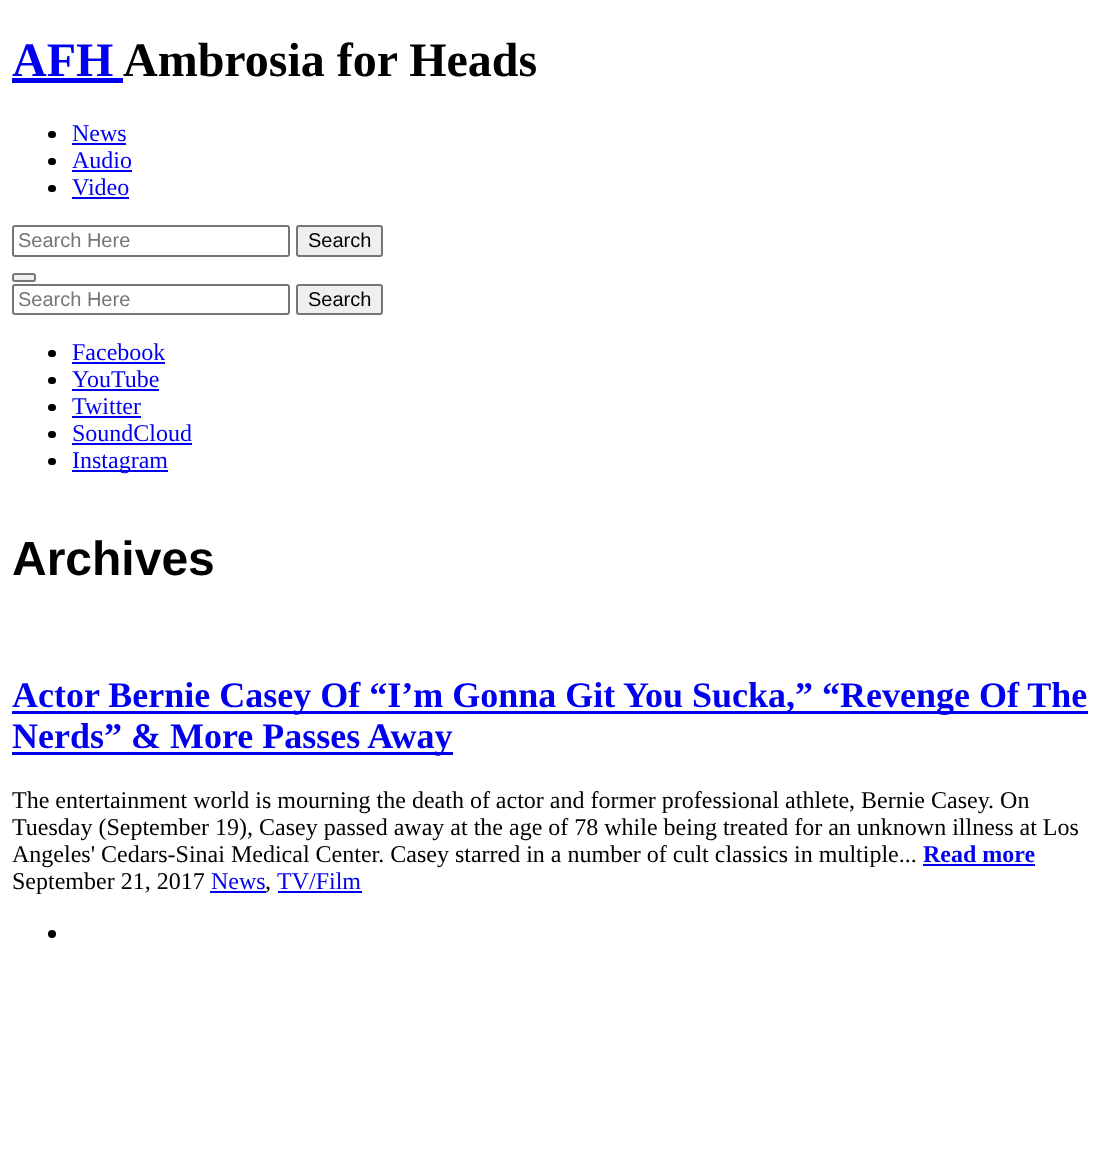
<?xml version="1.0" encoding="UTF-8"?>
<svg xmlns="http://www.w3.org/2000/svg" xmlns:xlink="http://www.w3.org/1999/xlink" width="1106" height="1160">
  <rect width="100%" height="100%" fill="#ffffff" />
  <rect x="12" y="78" width="111" height="5" fill="#0000ee" />
  <rect x="48" y="131" width="8" height="7" rx="3.5" fill="#000000" />
  <rect x="72" y="143" width="54" height="2" fill="#0000ee" />
  <rect x="48" y="158" width="8" height="7" rx="3.5" fill="#000000" />
  <rect x="72" y="170" width="60" height="2" fill="#0000ee" />
  <rect x="48" y="185" width="8" height="7" rx="3.5" fill="#000000" />
  <rect x="72" y="197" width="57" height="2" fill="#0000ee" />
  <rect x="13" y="226" width="276" height="30" rx="2" fill="none" stroke="#767676" stroke-width="2" />
  <rect x="297" y="226" width="85" height="30" rx="2" fill="#efefef" stroke="#767676" stroke-width="2" />
  <rect x="13" y="274" width="22" height="7" rx="2" fill="#efefef" stroke="#767676" stroke-width="2" />
  <rect x="13" y="285" width="276" height="29" rx="2" fill="none" stroke="#767676" stroke-width="2" />
  <rect x="297" y="285" width="85" height="29" rx="2" fill="#efefef" stroke="#767676" stroke-width="2" />
  <rect x="48" y="350" width="8" height="7" rx="3.5" fill="#000000" />
  <rect x="72" y="362" width="93" height="2" fill="#0000ee" />
  <rect x="48" y="377" width="8" height="7" rx="3.5" fill="#000000" />
  <rect x="72" y="389" width="87" height="2" fill="#0000ee" />
  <rect x="48" y="404" width="8" height="7" rx="3.5" fill="#000000" />
  <rect x="72" y="416" width="69" height="2" fill="#0000ee" />
  <rect x="48" y="431" width="8" height="7" rx="3.5" fill="#000000" />
  <rect x="72" y="443" width="120" height="2" fill="#0000ee" />
  <rect x="48" y="458" width="8" height="7" rx="3.5" fill="#000000" />
  <rect x="72" y="470" width="96" height="2" fill="#0000ee" />
  <rect x="12" y="711" width="1076" height="3" fill="#0000ee" />
  <rect x="12" y="752" width="441" height="3" fill="#0000ee" />
  <rect x="923" y="864" width="112" height="2" fill="#0000ee" />
  <rect x="210" y="891" width="56" height="2" fill="#0000ee" />
  <rect x="278" y="891" width="84" height="2" fill="#0000ee" />
  <circle cx="52" cy="934" r="4" fill="#000000" />
  <text x="12" y="76" style="font-family: Liberation Serif; font-size: 48px; font-weight: bold; fill: #0000ee">AFH</text>
  <text x="123" y="76" style="font-family: Liberation Serif; font-size: 48px; font-weight: bold; fill: #000000">Ambrosia for Heads</text>
  <text x="72" y="141" style="font-family: Liberation Serif; font-size: 24px; fill: #0000ee">News</text>
  <text x="72" y="168" style="font-family: Liberation Serif; font-size: 24px; fill: #0000ee">Audio</text>
  <text x="72" y="195" style="font-family: Liberation Serif; font-size: 24px; fill: #0000ee">Video</text>
  <text x="18" y="247" style="font-family: Liberation Sans; font-size: 20px; fill: #757575">Search Here</text>
  <text x="308" y="247" style="font-family: Liberation Sans; font-size: 20px; fill: #000000">Search</text>
  <text x="18" y="306" style="font-family: Liberation Sans; font-size: 20px; fill: #757575">Search Here</text>
  <text x="308" y="306" style="font-family: Liberation Sans; font-size: 20px; fill: #000000">Search</text>
  <text x="72" y="360" style="font-family: Liberation Serif; font-size: 24px; fill: #0000ee">Facebook</text>
  <text x="72" y="387" style="font-family: Liberation Serif; font-size: 24px; fill: #0000ee">YouTube</text>
  <text x="72" y="414" style="font-family: Liberation Serif; font-size: 24px; fill: #0000ee">Twitter</text>
  <text x="72" y="441" style="font-family: Liberation Serif; font-size: 24px; fill: #0000ee">SoundCloud</text>
  <text x="72" y="468" style="font-family: Liberation Serif; font-size: 24px; fill: #0000ee">Instagram</text>
  <text x="12" y="575" style="font-family: Liberation Sans; font-size: 48px; font-weight: bold; fill: #000000">Archives</text>
  <text x="12" y="707" style="font-family: Liberation Serif; font-size: 36px; font-weight: bold; fill: #0000ee">Actor Bernie Casey Of “I’m Gonna Git You Sucka,” “Revenge Of The</text>
  <text x="12" y="748" style="font-family: Liberation Serif; font-size: 36px; font-weight: bold; fill: #0000ee">Nerds” &amp; More Passes Away</text>
  <text x="12" y="808" style="font-family: Liberation Serif; font-size: 24px; fill: #000000">The entertainment world is mourning the death of actor and former professional athlete, Bernie Casey. On</text>
  <text x="12" y="835" style="font-family: Liberation Serif; font-size: 24px; fill: #000000">Tuesday (September 19), Casey passed away at the age of 78 while being treated for an unknown illness at Los</text>
  <text x="12" y="862" style="font-family: Liberation Serif; font-size: 24px; fill: #000000">Angeles' Cedars-Sinai Medical Center. Casey starred in a number of cult classics in multiple...</text>
  <text x="923" y="862" style="font-family: Liberation Serif; font-size: 24px; font-weight: bold; fill: #0000ee">Read more</text>
  <text x="12" y="889" style="font-family: Liberation Serif; font-size: 24px; fill: #000000">September 21, 2017</text>
  <text x="211" y="889" style="font-family: Liberation Serif; font-size: 24px; fill: #0000ee">News</text>
  <text x="265" y="889" style="font-family: Liberation Serif; font-size: 24px; fill: #000000">,</text>
  <text x="277" y="889" style="font-family: Liberation Serif; font-size: 24px; fill: #0000ee">TV/Film</text>
</svg>
